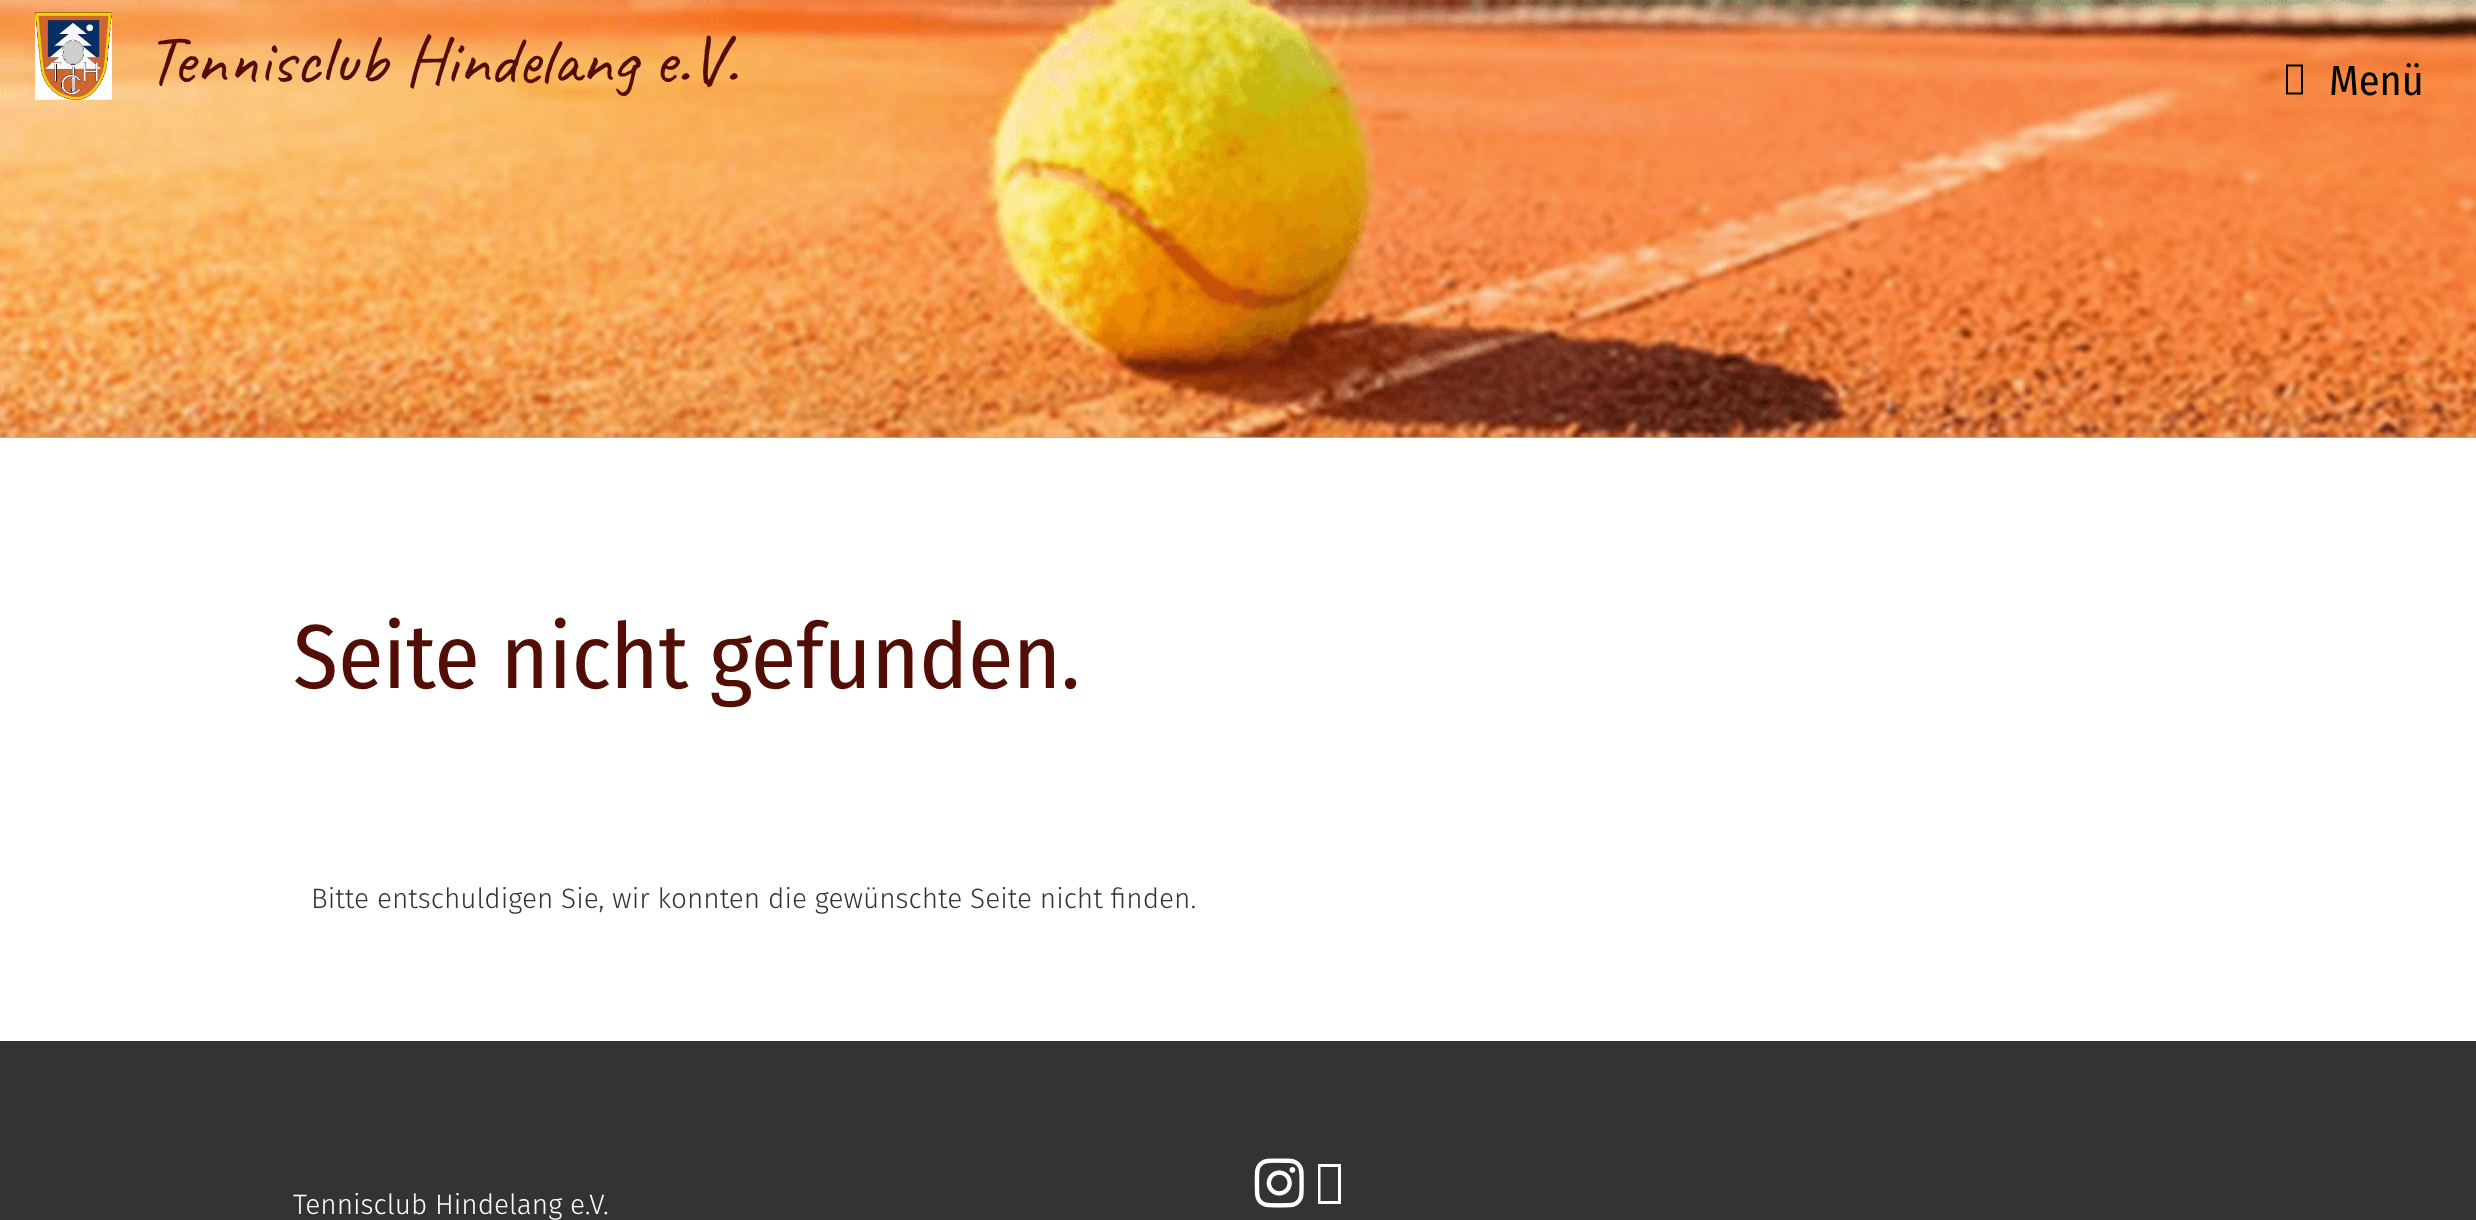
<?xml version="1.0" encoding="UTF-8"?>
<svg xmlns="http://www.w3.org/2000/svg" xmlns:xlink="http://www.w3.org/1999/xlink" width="2476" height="1220">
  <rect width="100%" height="100%" fill="#ffffff" />
  <rect width="2476" height="438" fill="#f5a663" />
  <image x="0" y="0" width="2476" height="438" xlink:href="image2.png" />
  <image x="35" y="12" width="77" height="88" xlink:href="image1.png" />
  <path d="M 2286 94.5 v -30 h 17 v 30 z m 2 -2 h 13 v -26 h -13 z" fill="#000000" />
  <rect y="1041" width="2476" height="179" fill="#333333" />
  <image x="1254" y="1158" width="50" height="50" xlink:href="image3.png" />
  <path d="M 1318 1204 v -40 h 23 v 40 z m 2.5 -3 h 17.5 v -34 h -17.5 z" fill="#ffffff" />
  <text x="146" y="83" style="font-family: Caveat; font-size: 70px; fill: #520e04">Tennisclub Hindelang e.V.</text>
  <text x="2329" y="95" style="font-family: Fira Sans Condensed; font-size: 42px; fill: #000000">Menü</text>
  <text x="293" y="688" style="font-family: Fira Sans Condensed; font-size: 91px; fill: #520e04">Seite nicht gefunden.</text>
  <text x="311" y="908" style="font-family: Fira Sans; font-size: 28px; font-weight: 300; fill: #333333">Bitte entschuldigen Sie, wir konnten die gewünschte Seite nicht finden.</text>
  <text x="293" y="1214" style="font-family: Fira Sans; font-size: 28px; font-weight: 300; fill: #ffffff">Tennisclub Hindelang e.V.</text>
</svg>
